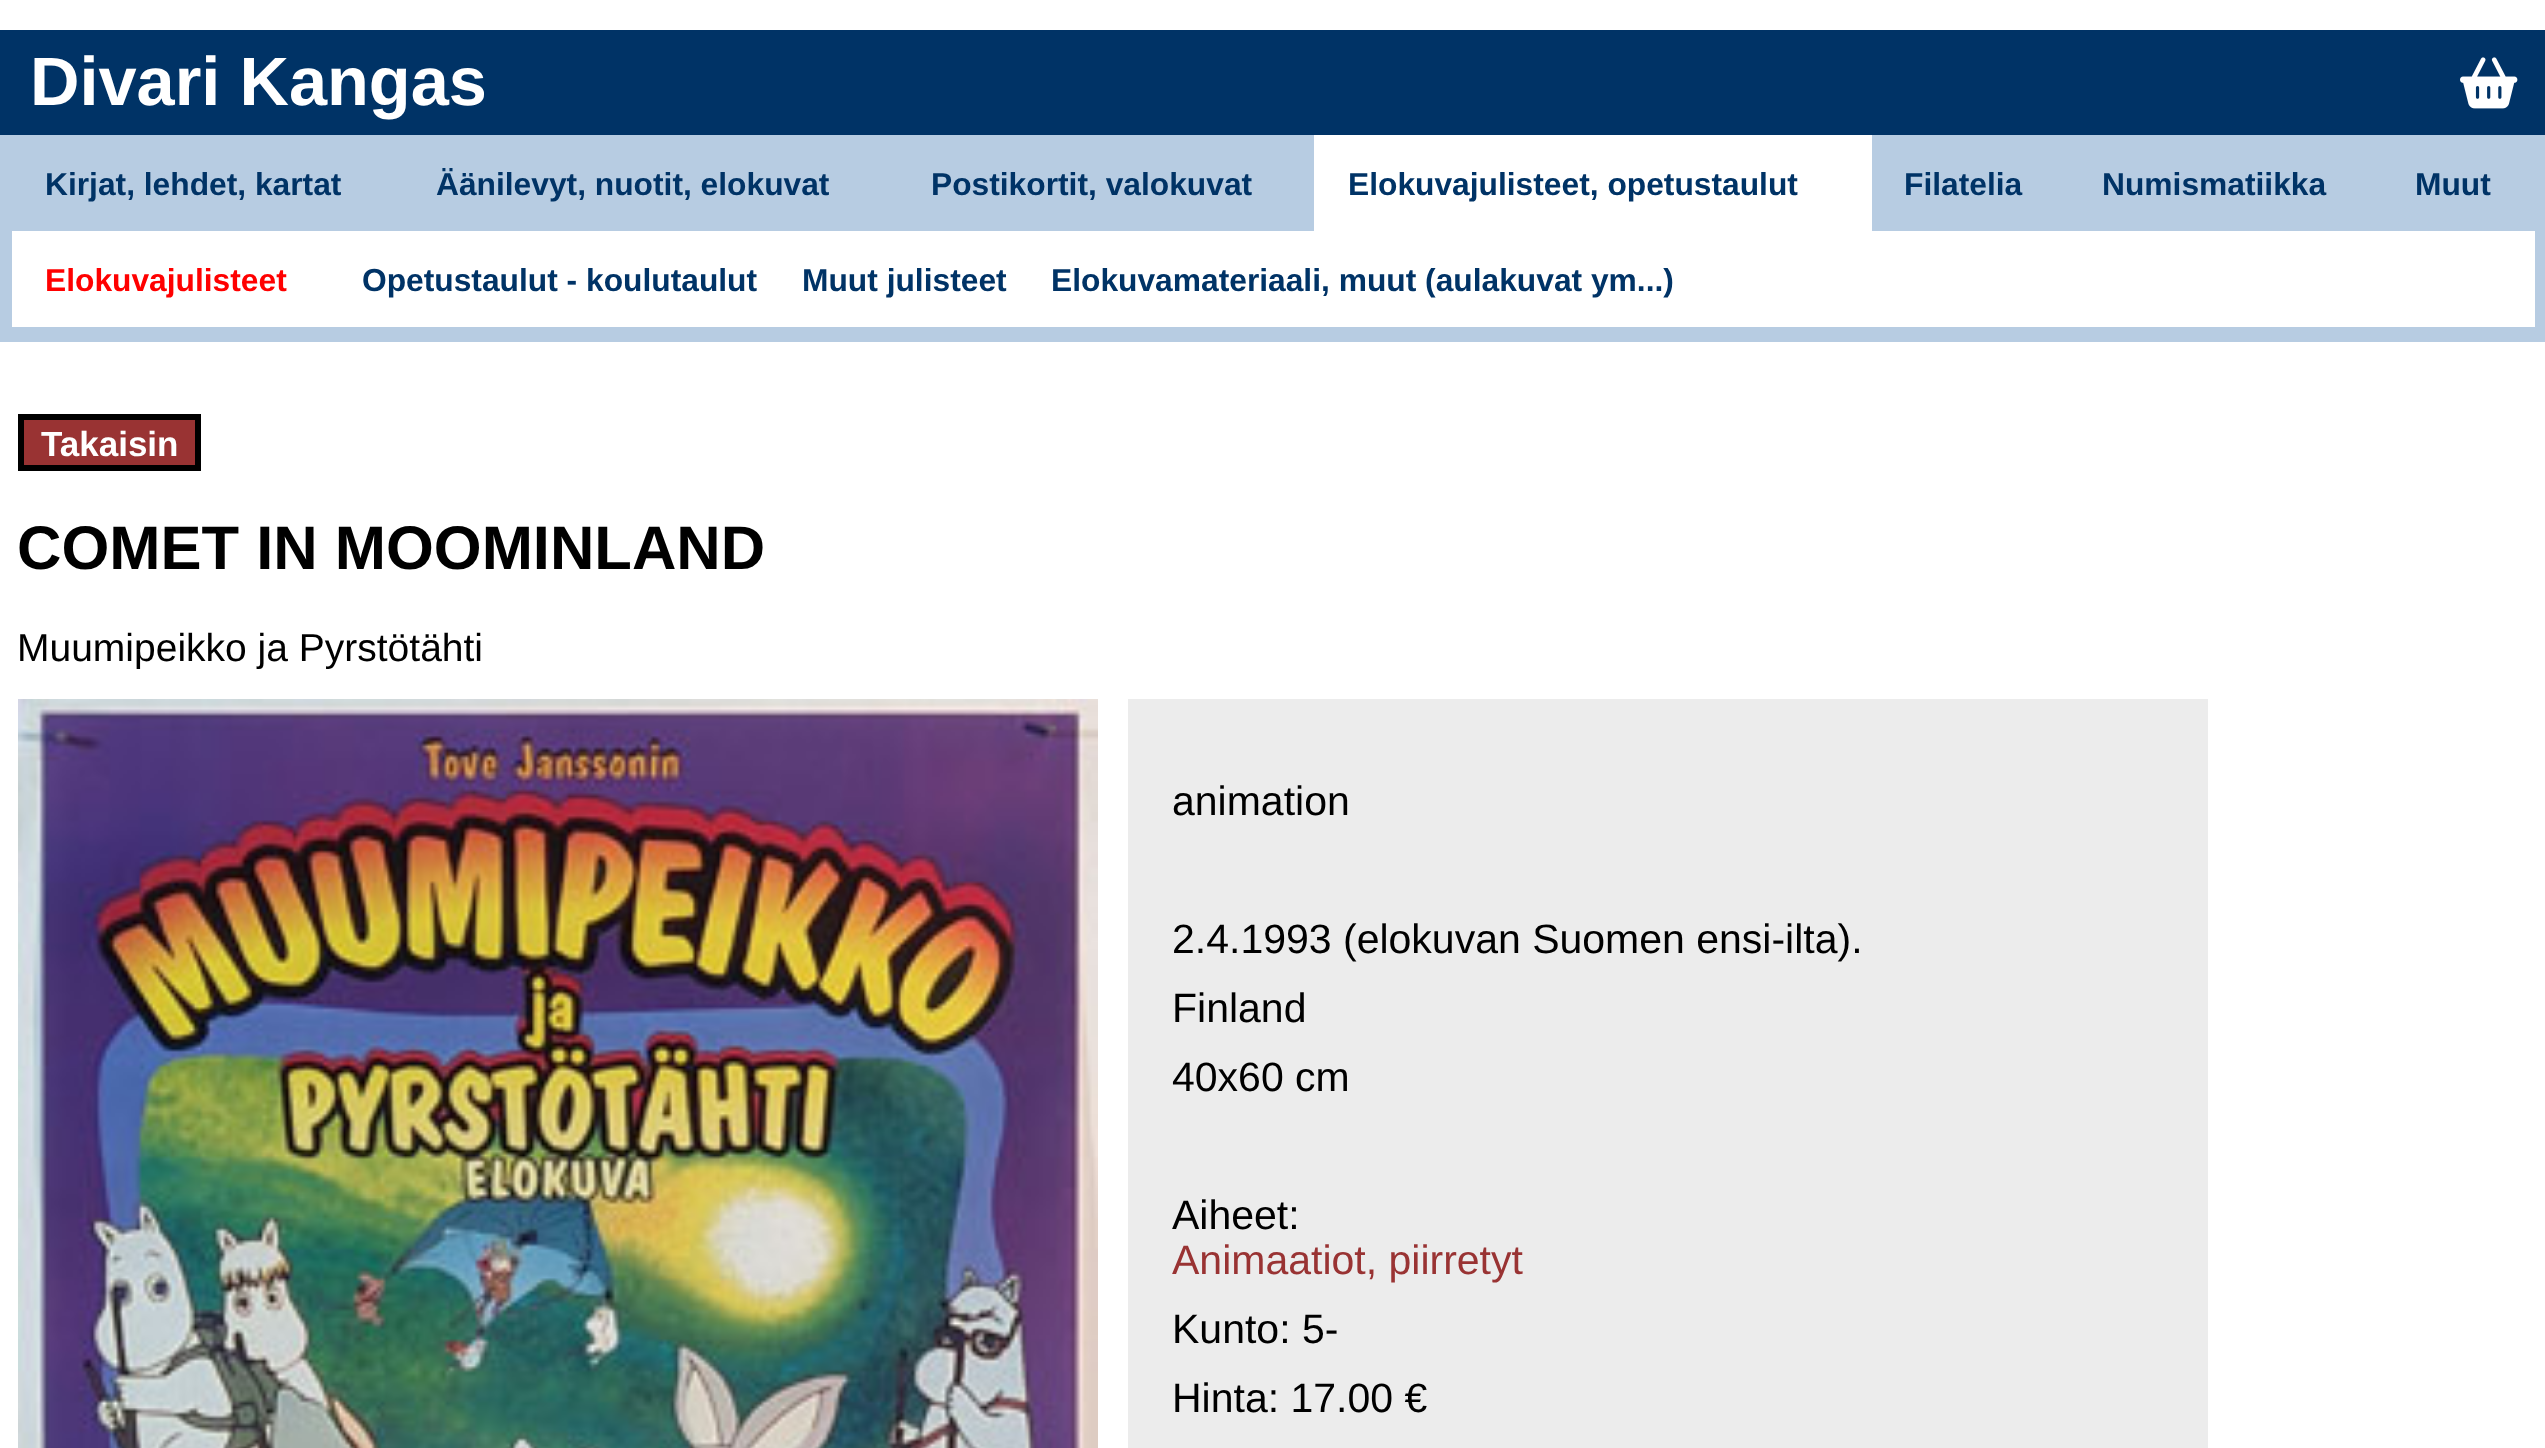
<?xml version="1.0" encoding="UTF-8"?>
<svg xmlns="http://www.w3.org/2000/svg" xmlns:xlink="http://www.w3.org/1999/xlink" width="2545" height="1448">
  <rect width="100%" height="100%" fill="#ffffff" />
  <rect y="30" width="2545" height="105" fill="#003366" />
  <image x="2460" y="57" width="58" height="52" xlink:href="image1.png" />
  <rect y="135" width="2545" height="207" fill="#b7cce2" />
  <rect x="1314" y="135" width="558" height="96" fill="#ffffff" />
  <rect x="12" y="231" width="2523" height="96" fill="#ffffff" />
  <rect x="21" y="417" width="177" height="51" fill="#993333" stroke="#000000" stroke-width="6" />
  <image x="18" y="699" width="1080" height="749" xlink:href="image2.png" />
  <rect x="1128" y="699" width="1080" height="749" fill="#ececec" />
  <text x="30" y="105" style="font-family: Liberation Sans; font-size: 68.5px; font-weight: bold; fill: #ffffff">Divari Kangas</text>
  <text x="45" y="195" style="font-family: Liberation Sans; font-size: 31.75px; font-weight: bold; fill: #003366">Kirjat, lehdet, kartat</text>
  <text x="436" y="195" style="font-family: Liberation Sans; font-size: 31.75px; font-weight: bold; fill: #003366">Äänilevyt, nuotit, elokuvat</text>
  <text x="931" y="195" style="font-family: Liberation Sans; font-size: 31.75px; font-weight: bold; fill: #003366">Postikortit, valokuvat</text>
  <text x="1348" y="195" style="font-family: Liberation Sans; font-size: 31.75px; font-weight: bold; fill: #003366">Elokuvajulisteet, opetustaulut</text>
  <text x="1904" y="195" style="font-family: Liberation Sans; font-size: 31.75px; font-weight: bold; fill: #003366">Filatelia</text>
  <text x="2102" y="195" style="font-family: Liberation Sans; font-size: 31.75px; font-weight: bold; fill: #003366">Numismatiikka</text>
  <text x="2415" y="195" style="font-family: Liberation Sans; font-size: 31.75px; font-weight: bold; fill: #003366">Muut</text>
  <text x="45" y="291" style="font-family: Liberation Sans; font-size: 31.75px; font-weight: bold; fill: #ff0000">Elokuvajulisteet</text>
  <text x="362" y="291" style="font-family: Liberation Sans; font-size: 31.75px; font-weight: bold; fill: #003366">Opetustaulut - koulutaulut</text>
  <text x="802" y="291" style="font-family: Liberation Sans; font-size: 31.75px; font-weight: bold; fill: #003366">Muut julisteet</text>
  <text x="1051" y="291" style="font-family: Liberation Sans; font-size: 31.75px; font-weight: bold; fill: #003366">Elokuvamateriaali, muut (aulakuvat ym...)</text>
  <text x="41" y="456" style="font-family: Liberation Sans; font-size: 35px; font-weight: bold; fill: #ffffff">Takaisin</text>
  <text x="17" y="569" style="font-family: Liberation Sans; font-size: 61.5px; font-weight: bold; fill: #000000">COMET IN MOOMINLAND</text>
  <text x="17" y="661" style="font-family: Liberation Sans; font-size: 39px; fill: #000000">Muumipeikko ja Pyrstötähti</text>
  <text x="1172" y="815" style="font-family: Liberation Sans; font-size: 41px; fill: #000000">animation</text>
  <text x="1172" y="953" style="font-family: Liberation Sans; font-size: 41px; fill: #000000">2.4.1993 (elokuvan Suomen ensi-ilta).</text>
  <text x="1172" y="1022" style="font-family: Liberation Sans; font-size: 41px; fill: #000000">Finland</text>
  <text x="1172" y="1091" style="font-family: Liberation Sans; font-size: 41px; fill: #000000">40x60 cm</text>
  <text x="1172" y="1229" style="font-family: Liberation Sans; font-size: 41px; fill: #000000">Aiheet:</text>
  <text x="1172" y="1274" style="font-family: Liberation Sans; font-size: 41px; fill: #993333">Animaatiot, piirretyt</text>
  <text x="1172" y="1343" style="font-family: Liberation Sans; font-size: 41px; fill: #000000">Kunto: 5-</text>
  <text x="1172" y="1412" style="font-family: Liberation Sans; font-size: 41px; fill: #000000">Hinta: 17.00 €</text>
</svg>
